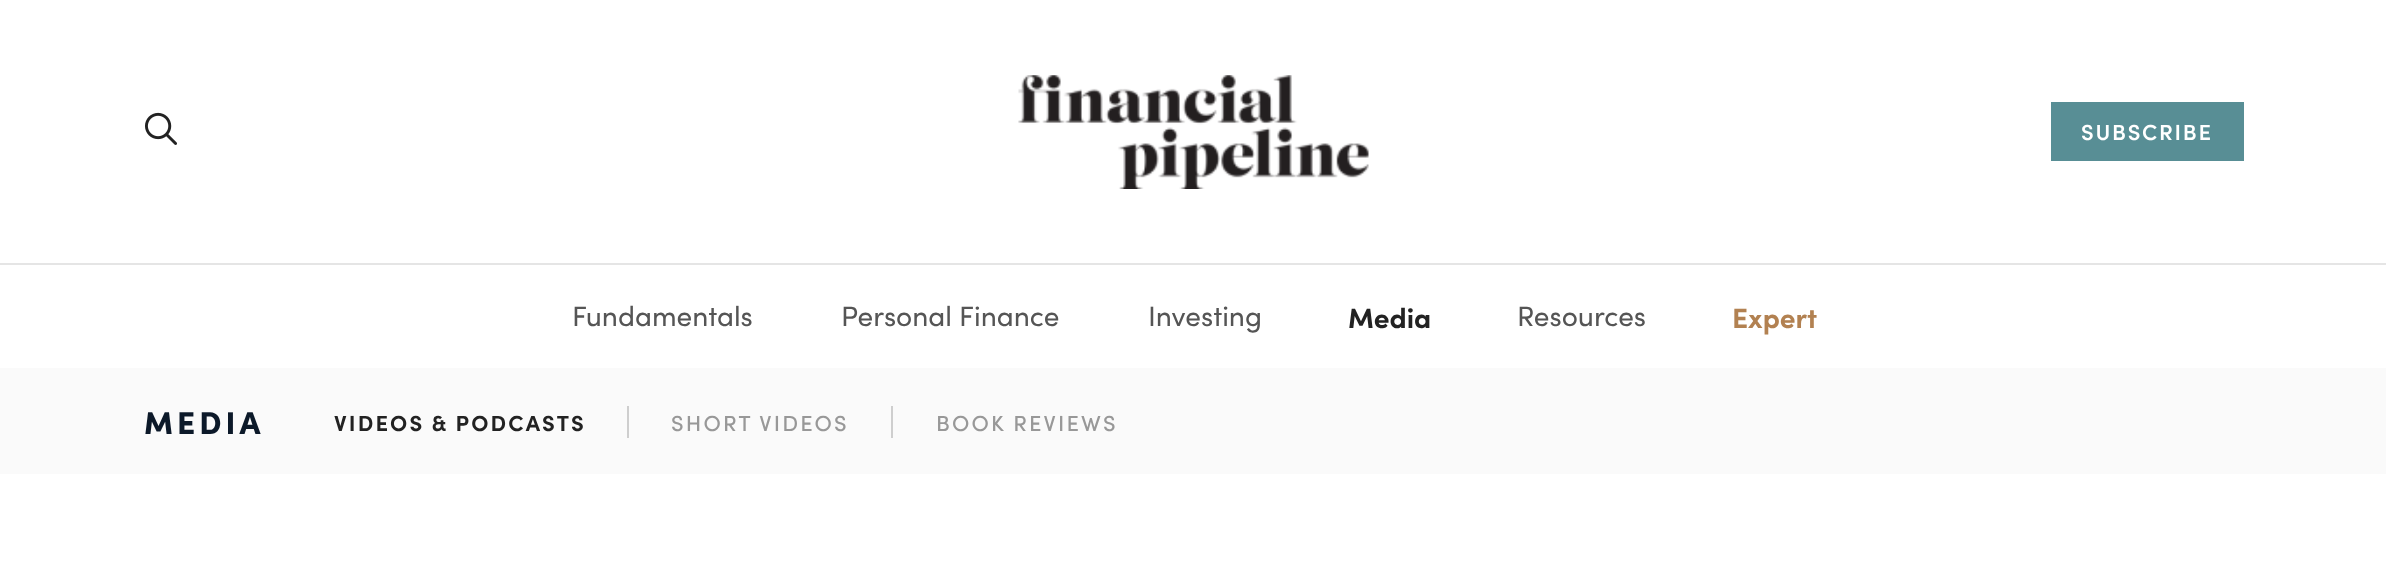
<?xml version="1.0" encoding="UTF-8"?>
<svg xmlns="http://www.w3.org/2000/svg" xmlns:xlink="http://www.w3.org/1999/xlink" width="2386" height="579">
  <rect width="100%" height="100%" fill="#ffffff" />
  <image x="145" y="112" width="32" height="33" xlink:href="image1.png" />
  <image x="1018" y="75" width="351" height="114" xlink:href="image2.png" />
  <rect x="2051" y="102" width="193" height="59" fill="#588e95" />
  <rect y="263" width="2386" height="2" fill="#e5e5e5" />
  <rect y="368" width="2386" height="106" fill="#fafafa" />
  <rect x="627" y="406" width="2" height="32" fill="#cecece" />
  <rect x="891" y="406" width="2" height="32" fill="#cecece" />
  <text x="2081" y="140" style="font-family: Sofia; font-size: 21.9px; font-weight: 600; letter-spacing: 1.75px; fill: #ffffff">SUBSCRIBE</text>
  <text x="572" y="326" style="font-family: Sofia; font-size: 28px; fill: #555555">Fundamentals</text>
  <text x="841" y="326" style="font-family: Sofia; font-size: 28px; fill: #555555">Personal Finance</text>
  <text x="1148" y="326" style="font-family: Sofia; font-size: 28px; fill: #555555">Investing</text>
  <text x="1517" y="326" style="font-family: Sofia; font-size: 28px; fill: #555555">Resources</text>
  <text x="1348" y="328" style="font-family: Sofia; font-size: 28px; font-weight: bold; fill: #222222">Media</text>
  <text x="144" y="434" style="font-family: Sofia; font-size: 31.5px; font-weight: 900; letter-spacing: 4px; fill: #0c1929">MEDIA</text>
  <text x="334" y="431" style="font-family: Sofia; font-size: 21.9px; font-weight: bold; letter-spacing: 2.2px; fill: #222222">VIDEOS &amp; PODCASTS</text>
  <text x="671" y="431" style="font-family: Sofia; font-size: 21.9px; font-weight: 500; letter-spacing: 2.2px; fill: #989898">SHORT VIDEOS</text>
  <text x="936" y="431" style="font-family: Sofia; font-size: 21.9px; font-weight: 500; letter-spacing: 2.2px; fill: #989898">BOOK REVIEWS</text>
  <text x="1732" y="328" style="font-family: Sofia; font-size: 28px; font-weight: bold; fill: #b28151">Expert</text>
</svg>
